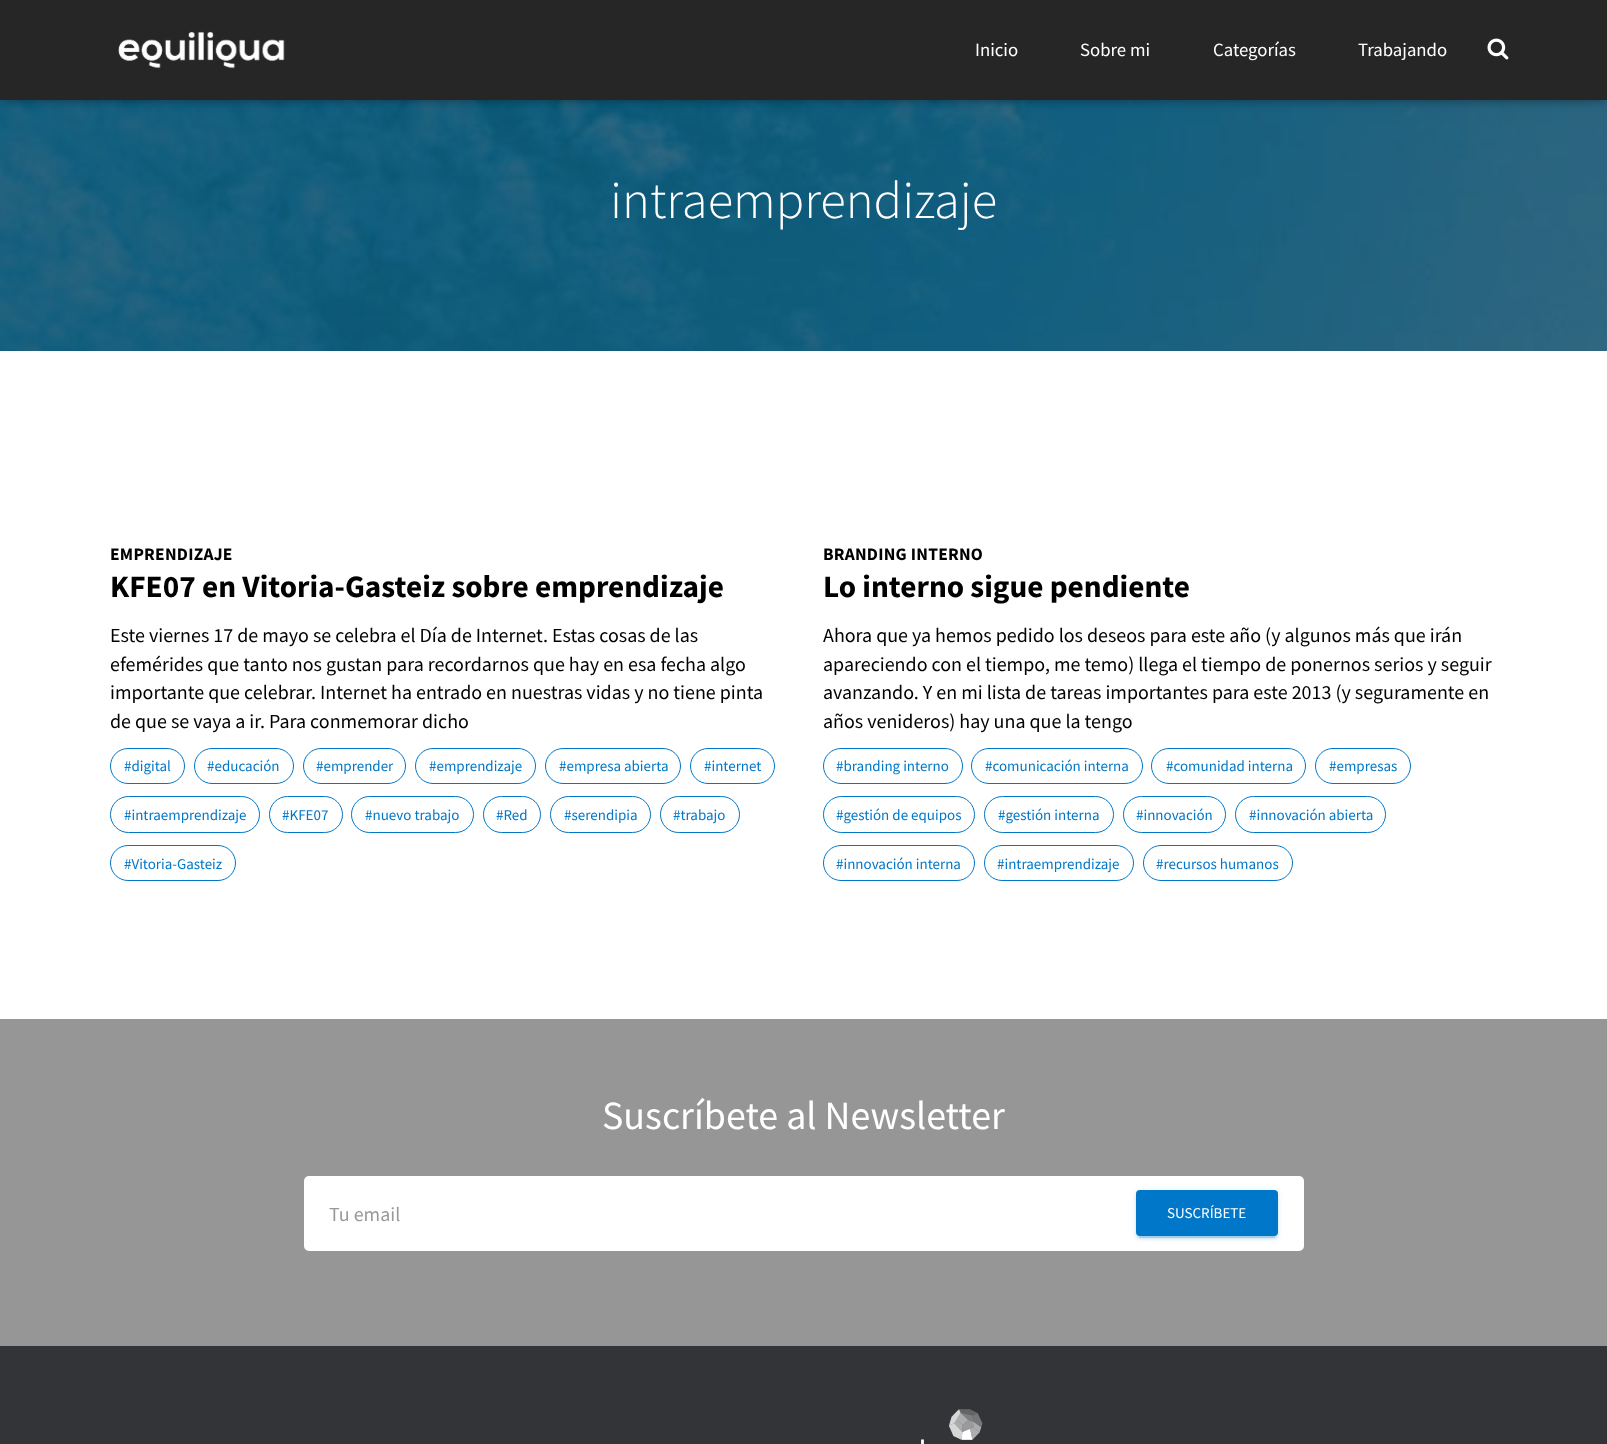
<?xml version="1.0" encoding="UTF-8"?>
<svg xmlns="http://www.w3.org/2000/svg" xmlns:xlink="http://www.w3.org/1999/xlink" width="1607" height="1444">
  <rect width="100%" height="100%" fill="#ffffff" />
  <image x="0" y="100" width="1607" height="251" xlink:href="image3.png" />
  <rect x="3" y="8" width="1602" height="95" fill="#000000" fill-opacity="0.1" filter="blur(3px)" />
  <rect y="1" width="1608" height="100" fill="#000000" fill-opacity="0.12" filter="blur(6px)" />
  <rect x="8" y="9" width="1592" height="85" fill="#000000" fill-opacity="0.42" filter="blur(6px)" />
  <rect width="1607" height="100" fill="#262626" />
  <image x="118" y="31" width="167" height="38" xlink:href="image1.png" />
  <image x="1487" y="38" width="22" height="22" xlink:href="image2.png" />
  <rect x="110.5" y="748.5" width="74" height="35" rx="17.5" fill="none" stroke="#0077c8" />
  <rect x="194.5" y="748.5" width="99" height="35" rx="17.5" fill="none" stroke="#0077c8" />
  <rect x="303.5" y="748.5" width="102" height="35" rx="17.5" fill="none" stroke="#0077c8" />
  <rect x="415.5" y="748.5" width="120" height="35" rx="17.5" fill="none" stroke="#0077c8" />
  <rect x="545.5" y="748.5" width="135" height="35" rx="17.5" fill="none" stroke="#0077c8" />
  <rect x="690.5" y="748.5" width="84" height="35" rx="17.5" fill="none" stroke="#0077c8" />
  <rect x="110.5" y="796.5" width="149" height="36" rx="18" fill="none" stroke="#0077c8" />
  <rect x="269.5" y="796.5" width="73" height="36" rx="18" fill="none" stroke="#0077c8" />
  <rect x="351.5" y="796.5" width="122" height="36" rx="18" fill="none" stroke="#0077c8" />
  <rect x="483.5" y="796.5" width="57" height="36" rx="18" fill="none" stroke="#0077c8" />
  <rect x="550.5" y="796.5" width="100" height="36" rx="18" fill="none" stroke="#0077c8" />
  <rect x="660.5" y="796.5" width="79" height="36" rx="18" fill="none" stroke="#0077c8" />
  <rect x="110.5" y="845.5" width="125" height="35" rx="17.5" fill="none" stroke="#0077c8" />
  <rect x="823.5" y="748.5" width="139" height="35" rx="17.5" fill="none" stroke="#0077c8" />
  <rect x="971.5" y="748.5" width="171" height="35" rx="17.5" fill="none" stroke="#0077c8" />
  <rect x="1151.5" y="748.5" width="154" height="35" rx="17.5" fill="none" stroke="#0077c8" />
  <rect x="1315.5" y="748.5" width="95" height="35" rx="17.5" fill="none" stroke="#0077c8" />
  <rect x="823.5" y="796.5" width="151" height="36" rx="18" fill="none" stroke="#0077c8" />
  <rect x="984.5" y="796.5" width="129" height="36" rx="18" fill="none" stroke="#0077c8" />
  <rect x="1123.5" y="796.5" width="102" height="36" rx="18" fill="none" stroke="#0077c8" />
  <rect x="1235.5" y="796.5" width="150" height="36" rx="18" fill="none" stroke="#0077c8" />
  <rect x="823.5" y="845.5" width="151" height="35" rx="17.5" fill="none" stroke="#0077c8" />
  <rect x="984.5" y="845.5" width="149" height="35" rx="17.5" fill="none" stroke="#0077c8" />
  <rect x="1143.5" y="845.5" width="149" height="35" rx="17.5" fill="none" stroke="#0077c8" />
  <rect y="1346" width="1607" height="98" fill="#323437" />
  <rect y="1019" width="1607" height="327" fill="#969696" />
  <rect x="304" y="1176" width="1000" height="75" rx="5" fill="#ffffff" />
  <rect x="1136" y="1191" width="142" height="47" rx="4" fill="#0077c8" fill-opacity="0.12" filter="blur(3px)" />
  <rect x="1139" y="1196" width="136" height="42" rx="1" fill="#0077c8" fill-opacity="0.2" filter="blur(0.5px)" />
  <rect x="1136" y="1193" width="142" height="46" rx="4" fill="#0077c8" fill-opacity="0.14" filter="blur(1px)" />
  <rect x="1136" y="1190" width="142" height="46" rx="4" fill="#0077c8" />
  <image x="921" y="1409" width="62" height="35" xlink:href="image4.png" />
  <text x="975" y="56" style="font-family: Source Sans Pro; font-size: 18.75px; fill: #ffffff">Inicio</text>
  <text x="1080" y="56" style="font-family: Source Sans Pro; font-size: 18.75px; fill: #ffffff">Sobre mi</text>
  <text x="1213" y="56" style="font-family: Source Sans Pro; font-size: 18.75px; fill: #ffffff">Categorías</text>
  <text x="1358" y="56" style="font-family: Source Sans Pro; font-size: 18.75px; fill: #ffffff">Trabajando</text>
  <text x="610" y="218" style="font-family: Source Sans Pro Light; font-size: 52.5px; font-weight: 300; fill: #ffffff">intraemprendizaje</text>
  <text x="110" y="560" style="font-family: Source Sans Pro; font-size: 17.5px; font-weight: bold; letter-spacing: 0.25px; fill: #000000">EMPRENDIZAJE</text>
  <text x="110" y="597" style="font-family: Source Sans Pro; font-size: 31.25px; font-weight: bold; fill: #000000">KFE07 en Vitoria-Gasteiz sobre emprendizaje</text>
  <text x="110" y="642" style="font-family: Source Sans Pro; font-size: 20px; fill: #000000">Este viernes 17 de mayo se celebra el Día de Internet. Estas cosas de las</text>
  <text x="110" y="671" style="font-family: Source Sans Pro; font-size: 20px; fill: #000000">efemérides que tanto nos gustan para recordarnos que hay en esa fecha algo</text>
  <text x="110" y="699" style="font-family: Source Sans Pro; font-size: 20px; fill: #000000">importante que celebrar. Internet ha entrado en nuestras vidas y no tiene pinta</text>
  <text x="110" y="728" style="font-family: Source Sans Pro; font-size: 20px; fill: #000000">de que se vaya a ir. Para conmemorar dicho</text>
  <text x="124" y="771" style="font-family: Source Sans Pro; font-size: 15px; fill: #0077c8">#digital</text>
  <text x="207" y="771" style="font-family: Source Sans Pro; font-size: 15px; fill: #0077c8">#educación</text>
  <text x="316" y="771" style="font-family: Source Sans Pro; font-size: 15px; fill: #0077c8">#emprender</text>
  <text x="429" y="771" style="font-family: Source Sans Pro; font-size: 15px; fill: #0077c8">#emprendizaje</text>
  <text x="559" y="771" style="font-family: Source Sans Pro; font-size: 15px; fill: #0077c8">#empresa abierta</text>
  <text x="704" y="771" style="font-family: Source Sans Pro; font-size: 15px; fill: #0077c8">#internet</text>
  <text x="124" y="820" style="font-family: Source Sans Pro; font-size: 15px; fill: #0077c8">#intraemprendizaje</text>
  <text x="282" y="820" style="font-family: Source Sans Pro; font-size: 15px; fill: #0077c8">#KFE07</text>
  <text x="365" y="820" style="font-family: Source Sans Pro; font-size: 15px; fill: #0077c8">#nuevo trabajo</text>
  <text x="496" y="820" style="font-family: Source Sans Pro; font-size: 15px; fill: #0077c8">#Red</text>
  <text x="564" y="820" style="font-family: Source Sans Pro; font-size: 15px; fill: #0077c8">#serendipia</text>
  <text x="673" y="820" style="font-family: Source Sans Pro; font-size: 15px; fill: #0077c8">#trabajo</text>
  <text x="124" y="869" style="font-family: Source Sans Pro; font-size: 15px; fill: #0077c8">#Vitoria-Gasteiz</text>
  <text x="823" y="560" style="font-family: Source Sans Pro; font-size: 17.5px; font-weight: bold; letter-spacing: 0.25px; fill: #000000">BRANDING INTERNO</text>
  <text x="823" y="597" style="font-family: Source Sans Pro; font-size: 31.25px; font-weight: bold; fill: #000000">Lo interno sigue pendiente</text>
  <text x="823" y="642" style="font-family: Source Sans Pro; font-size: 20px; fill: #000000">Ahora que ya hemos pedido los deseos para este año (y algunos más que irán</text>
  <text x="823" y="671" style="font-family: Source Sans Pro; font-size: 20px; fill: #000000">apareciendo con el tiempo, me temo) llega el tiempo de ponernos serios y seguir</text>
  <text x="823" y="699" style="font-family: Source Sans Pro; font-size: 20px; fill: #000000">avanzando. Y en mi lista de tareas importantes para este 2013 (y seguramente en</text>
  <text x="823" y="728" style="font-family: Source Sans Pro; font-size: 20px; fill: #000000">años venideros) hay una que la tengo</text>
  <text x="836" y="771" style="font-family: Source Sans Pro; font-size: 15px; fill: #0077c8">#branding interno</text>
  <text x="985" y="771" style="font-family: Source Sans Pro; font-size: 15px; fill: #0077c8">#comunicación interna</text>
  <text x="1166" y="771" style="font-family: Source Sans Pro; font-size: 15px; fill: #0077c8">#comunidad interna</text>
  <text x="1329" y="771" style="font-family: Source Sans Pro; font-size: 15px; fill: #0077c8">#empresas</text>
  <text x="836" y="820" style="font-family: Source Sans Pro; font-size: 15px; fill: #0077c8">#gestión de equipos</text>
  <text x="998" y="820" style="font-family: Source Sans Pro; font-size: 15px; fill: #0077c8">#gestión interna</text>
  <text x="1136" y="820" style="font-family: Source Sans Pro; font-size: 15px; fill: #0077c8">#innovación</text>
  <text x="1249" y="820" style="font-family: Source Sans Pro; font-size: 15px; fill: #0077c8">#innovación abierta</text>
  <text x="836" y="869" style="font-family: Source Sans Pro; font-size: 15px; fill: #0077c8">#innovación interna</text>
  <text x="997" y="869" style="font-family: Source Sans Pro; font-size: 15px; fill: #0077c8">#intraemprendizaje</text>
  <text x="1156" y="869" style="font-family: Source Sans Pro; font-size: 15px; fill: #0077c8">#recursos humanos</text>
  <text x="602" y="1129" style="font-family: Source Sans Pro; font-size: 40px; fill: #ffffff">Suscríbete al Newsletter</text>
  <text x="329" y="1221" style="font-family: Source Sans Pro; font-size: 20px; fill: #999999">Tu email</text>
  <text x="1167" y="1218" style="font-family: Source Sans Pro; font-size: 15px; fill: #ffffff">SUSCRÍBETE</text>
</svg>
